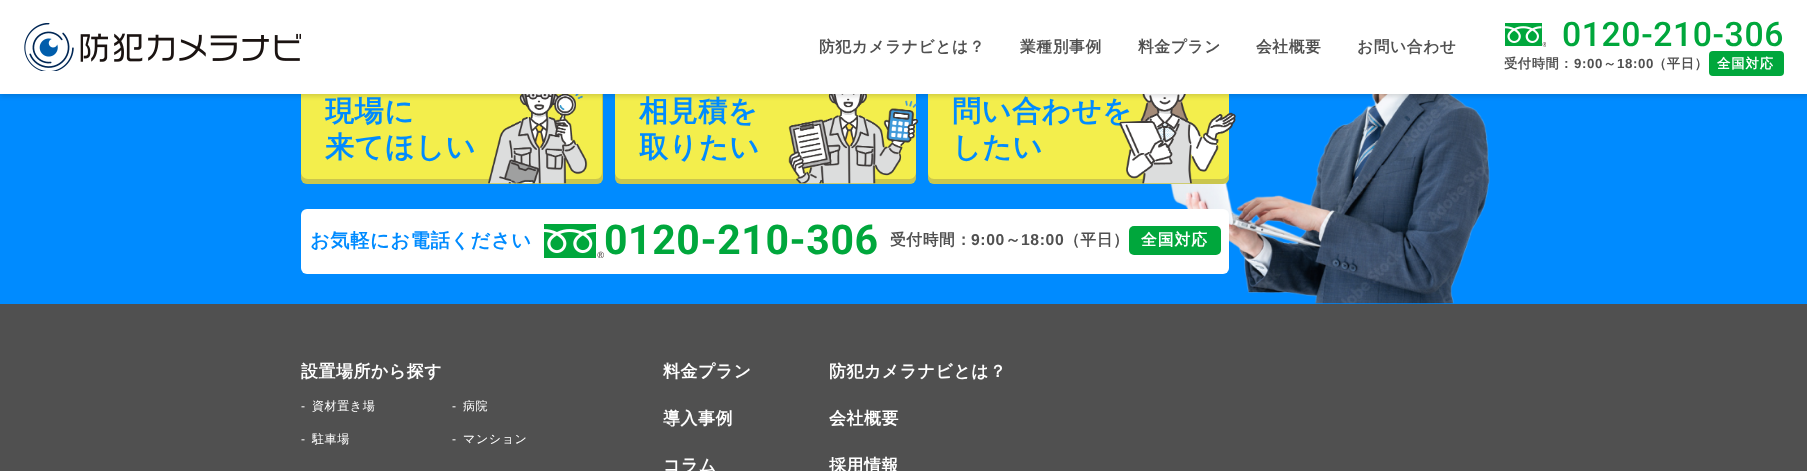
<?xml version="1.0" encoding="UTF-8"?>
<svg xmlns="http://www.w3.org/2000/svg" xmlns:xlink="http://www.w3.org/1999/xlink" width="1807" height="471">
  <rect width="100%" height="100%" fill="#505050" />
  <rect y="94" width="1807" height="210" fill="#008bff" />
  <rect x="301" y="76" width="302" height="108" rx="6" fill="#f3ee4c" />
  <path d="M 301 172 v 6 c 0 3 3 6 6 6 h 290 c 3 0 6 -3 6 -6 v -96 c 0 -1 0 -2 -1 -3 v 93 c 0 4 -2 7 -6 7 h -288 c -4 0 -7 -3 -7 -7 z" fill="#505050" fill-opacity="0.25" />
  <image x="488" y="94" width="100" height="90" xlink:href="image3.png" />
  <rect x="615" y="76" width="301" height="108" rx="6" fill="#f3ee4c" />
  <path d="M 615 172 v 6 c 0 3 3 6 6 6 h 289 c 3 0 6 -3 6 -6 v -6 c 0 4 -3 7 -6 7 h -289 c -3 0 -6 -3 -6 -7 z" fill="#505050" fill-opacity="0.25" />
  <image x="788" y="94" width="131" height="90" xlink:href="image4.png" />
  <image x="1170" y="94" width="320" height="210" xlink:href="image7.png" />
  <rect x="928" y="76" width="301" height="108" rx="6" fill="#f3ee4c" />
  <path d="M 928 172 v 6 c 0 3 3 6 6 6 h 289 c 3 0 6 -3 6 -6 v -6 c 0 4 -3 7 -7 7 h -288 c -4 0 -6 -3 -6 -7 z" fill="#505050" fill-opacity="0.25" />
  <rect x="301" y="209" width="928" height="65" rx="6" fill="#ffffff" />
  <image x="544" y="224" width="60" height="34" xlink:href="image6.png" />
  <rect x="1129" y="226" width="92" height="29" rx="5" fill="#00a73c" />
  <text x="325" y="121" style="font-family: WenQuanYi Zen Hei; font-size: 29px; font-weight: bold; letter-spacing: 0.6px; fill: #008bff">現場に</text>
  <text x="325" y="157" style="font-family: WenQuanYi Zen Hei; font-size: 29px; font-weight: bold; letter-spacing: 0.6px; fill: #008bff">来てほしい</text>
  <text x="639" y="121" style="font-family: WenQuanYi Zen Hei; font-size: 29px; font-weight: bold; letter-spacing: 0.6px; fill: #008bff">相見積を</text>
  <text x="639" y="157" style="font-family: WenQuanYi Zen Hei; font-size: 29px; font-weight: bold; letter-spacing: 0.6px; fill: #008bff">取りたい</text>
  <text x="952" y="121" style="font-family: WenQuanYi Zen Hei; font-size: 29px; font-weight: bold; letter-spacing: 0.6px; fill: #008bff">問い合わせを</text>
  <image x="1119" y="94" width="117" height="90" xlink:href="image5.png" />
  <rect y="3" width="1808" height="93" fill="#000000" fill-opacity="0.15" filter="blur(2.5px)" />
  <rect width="1807" height="94" fill="#ffffff" />
  <text x="1020" y="52" style="font-family: WenQuanYi Zen Hei; font-size: 15.75px; font-weight: bold; letter-spacing: 0.6px; fill: #505050">業種別事例</text>
  <rect x="1709" y="51" width="75" height="25" rx="4" fill="#00a73c" />
  <text x="1717" y="68" style="font-family: WenQuanYi Zen Hei; font-size: 13.25px; font-weight: bold; letter-spacing: 1px; fill: #ffffff">全国対応</text>
  <text x="1653" y="68" style="font-family: WenQuanYi Zen Hei; font-size: 13.25px; font-weight: bold; letter-spacing: 0.6px; fill: #505050">（平日）</text>
  <text x="1617" y="68" style="font-family: Liberation Sans; font-size: 13.25px; font-weight: bold; letter-spacing: 0.6px; fill: #505050">18:00</text>
  <text x="1603" y="68" style="font-family: WenQuanYi Zen Hei; font-size: 13.25px; font-weight: bold; letter-spacing: 0.6px; fill: #505050">～</text>
  <text x="1574" y="68" style="font-family: Liberation Sans; font-size: 13.25px; font-weight: bold; letter-spacing: 0.6px; fill: #505050">9:00</text>
  <text x="1504" y="68" style="font-family: WenQuanYi Zen Hei; font-size: 13.25px; font-weight: bold; letter-spacing: 0.6px; fill: #505050">受付時間：</text>
  <text x="1562" y="46" style="font-family: Roboto; font-size: 33.75px; font-weight: 500; letter-spacing: 0.6px; fill: #00a73c">0120-210-306</text>
  <image x="1505" y="23" width="41" height="24" xlink:href="image2.png" />
  <text x="1357" y="52" style="font-family: WenQuanYi Zen Hei; font-size: 15.75px; font-weight: bold; letter-spacing: 0.6px; fill: #505050">お問い合わせ</text>
  <text x="1256" y="52" style="font-family: WenQuanYi Zen Hei; font-size: 15.75px; font-weight: bold; letter-spacing: 0.6px; fill: #505050">会社概要</text>
  <text x="1138" y="52" style="font-family: WenQuanYi Zen Hei; font-size: 15.75px; font-weight: bold; letter-spacing: 0.6px; fill: #505050">料金プラン</text>
  <text x="819" y="52" style="font-family: WenQuanYi Zen Hei; font-size: 15.75px; font-weight: bold; letter-spacing: 0.6px; fill: #505050">防犯カメラナビとは？</text>
  <image x="24" y="23" width="277" height="48" xlink:href="image1.png" />
  <text x="952" y="157" style="font-family: WenQuanYi Zen Hei; font-size: 29px; font-weight: bold; letter-spacing: 0.6px; fill: #008bff">したい</text>
  <text x="310" y="247" style="font-family: WenQuanYi Zen Hei; font-size: 19.25px; font-weight: bold; letter-spacing: 0.6px; fill: #008bff">お気軽にお電話ください</text>
  <text x="604" y="254" style="font-family: Roboto; font-size: 41px; font-weight: bold; letter-spacing: 0.6px; fill: #00a73c">0120-210-306</text>
  <text x="890" y="245" style="font-family: WenQuanYi Zen Hei; font-size: 15.75px; font-weight: bold; letter-spacing: 0.6px; fill: #505050">受付時間：</text>
  <text x="971" y="245" style="font-family: Liberation Sans; font-size: 15.75px; font-weight: bold; letter-spacing: 0.6px; fill: #505050">9:00</text>
  <text x="1005" y="245" style="font-family: WenQuanYi Zen Hei; font-size: 15.75px; font-weight: bold; letter-spacing: 0.6px; fill: #505050">～</text>
  <text x="1021" y="245" style="font-family: Liberation Sans; font-size: 15.75px; font-weight: bold; letter-spacing: 0.6px; fill: #505050">18:00</text>
  <text x="1064" y="245" style="font-family: WenQuanYi Zen Hei; font-size: 15.75px; font-weight: bold; letter-spacing: 0.6px; fill: #505050">（平日）</text>
  <text x="1141" y="245" style="font-family: WenQuanYi Zen Hei; font-size: 15.75px; font-weight: bold; letter-spacing: 1px; fill: #ffffff">全国対応</text>
  <text x="301" y="377" style="font-family: WenQuanYi Zen Hei; font-size: 16.9px; font-weight: bold; letter-spacing: 0.6px; fill: #ffffff">設置場所から探す</text>
  <text x="301" y="410" style="font-family: Liberation Sans; font-size: 12px; letter-spacing: 0.6px; fill: #ffffff">-</text>
  <text x="312" y="410" style="font-family: WenQuanYi Zen Hei; font-size: 12px; font-weight: 500; letter-spacing: 0.6px; fill: #ffffff">資材置き場</text>
  <text x="452" y="410" style="font-family: Liberation Sans; font-size: 12px; letter-spacing: 0.6px; fill: #ffffff">-</text>
  <text x="463" y="410" style="font-family: WenQuanYi Zen Hei; font-size: 12px; font-weight: 500; letter-spacing: 0.6px; fill: #ffffff">病院</text>
  <text x="301" y="443" style="font-family: Liberation Sans; font-size: 12px; letter-spacing: 0.6px; fill: #ffffff">-</text>
  <text x="312" y="443" style="font-family: WenQuanYi Zen Hei; font-size: 12px; font-weight: 500; letter-spacing: 0.6px; fill: #ffffff">駐車場</text>
  <text x="452" y="443" style="font-family: Liberation Sans; font-size: 12px; letter-spacing: 0.6px; fill: #ffffff">-</text>
  <text x="463" y="443" style="font-family: WenQuanYi Zen Hei; font-size: 12px; font-weight: 500; letter-spacing: 0.6px; fill: #ffffff">マンション</text>
  <text x="663" y="377" style="font-family: WenQuanYi Zen Hei; font-size: 16.9px; font-weight: bold; letter-spacing: 0.6px; fill: #ffffff">料金プラン</text>
  <text x="663" y="424" style="font-family: WenQuanYi Zen Hei; font-size: 16.9px; font-weight: bold; letter-spacing: 0.6px; fill: #ffffff">導入事例</text>
  <text x="663" y="471" style="font-family: WenQuanYi Zen Hei; font-size: 16.9px; font-weight: bold; letter-spacing: 0.6px; fill: #ffffff">コラム</text>
  <text x="829" y="377" style="font-family: WenQuanYi Zen Hei; font-size: 16.9px; font-weight: bold; letter-spacing: 0.6px; fill: #ffffff">防犯カメラナビとは？</text>
  <text x="829" y="424" style="font-family: WenQuanYi Zen Hei; font-size: 16.9px; font-weight: bold; letter-spacing: 0.6px; fill: #ffffff">会社概要</text>
  <text x="829" y="471" style="font-family: WenQuanYi Zen Hei; font-size: 16.9px; font-weight: bold; letter-spacing: 0.6px; fill: #ffffff">採用情報</text>
</svg>
